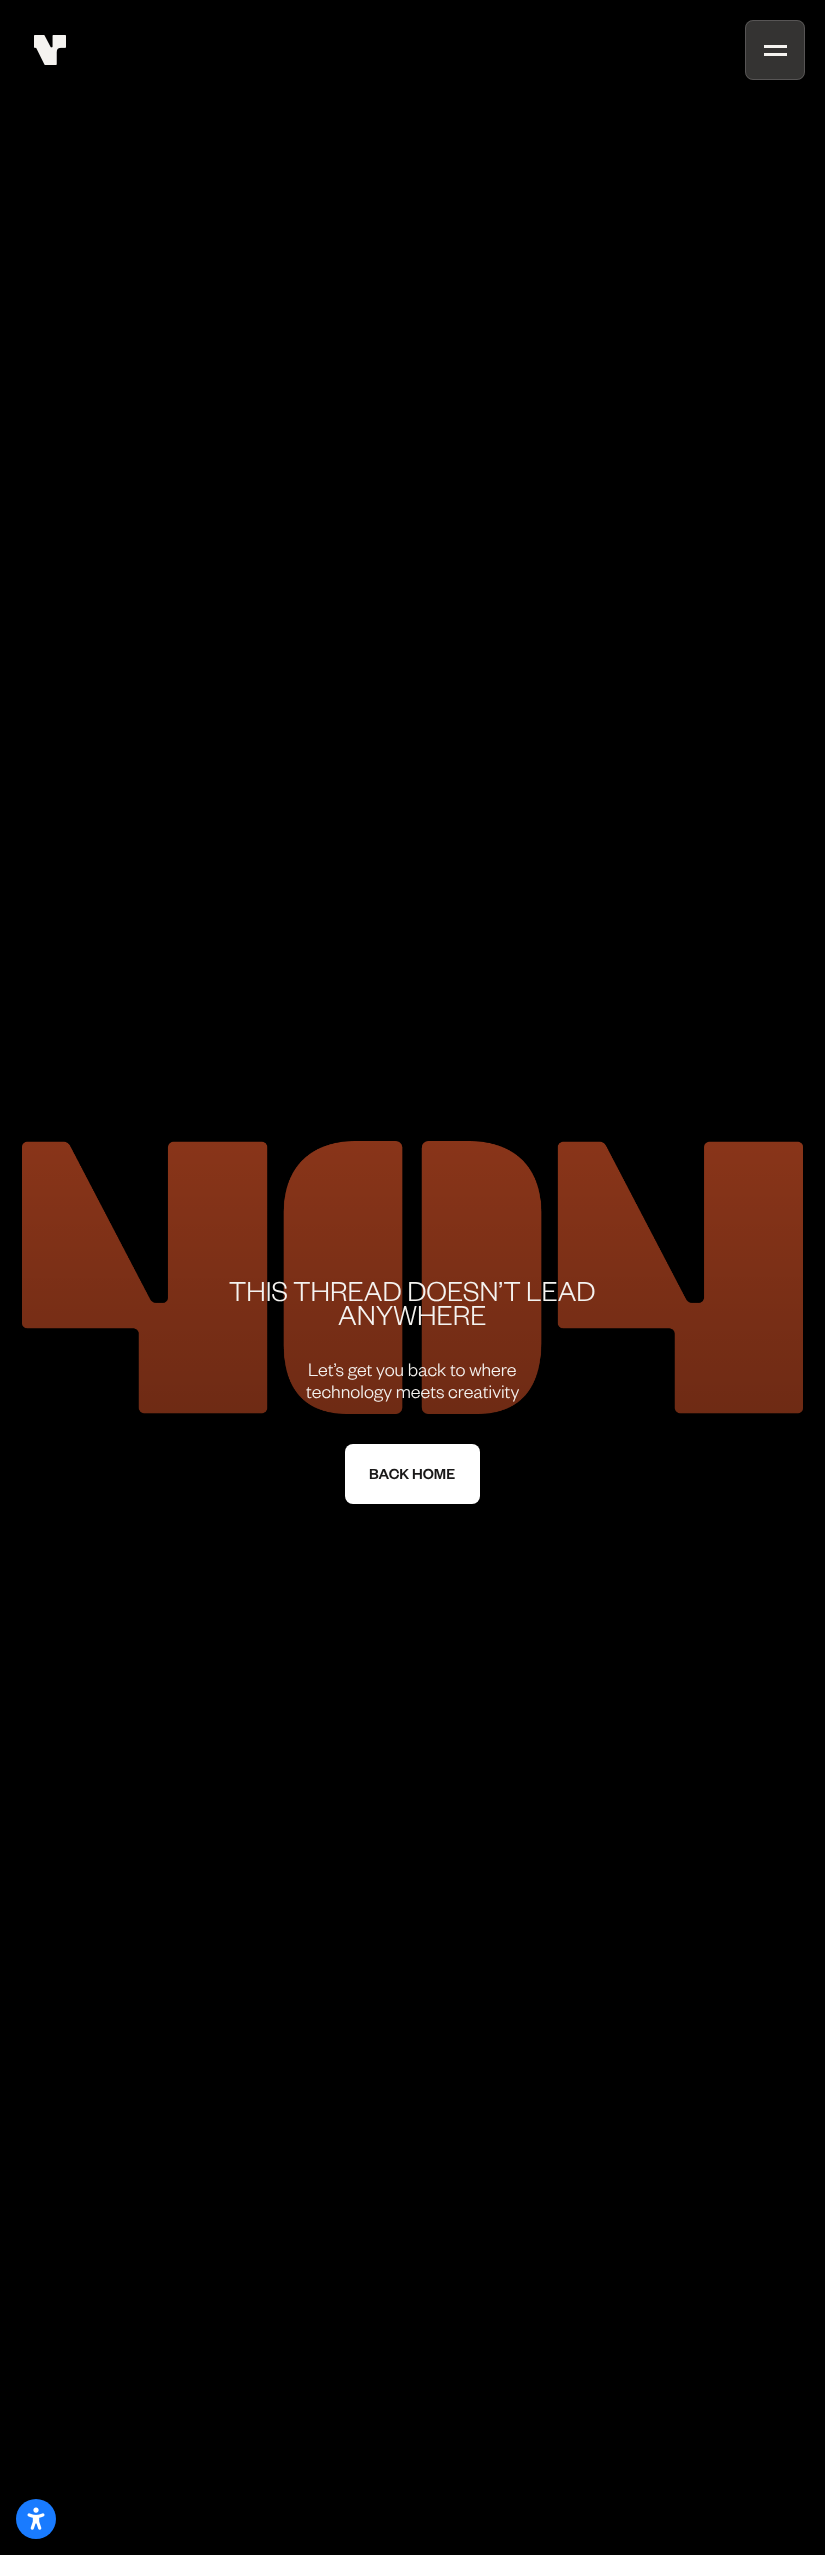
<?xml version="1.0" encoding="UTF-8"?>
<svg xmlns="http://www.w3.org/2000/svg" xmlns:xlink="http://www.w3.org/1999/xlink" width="825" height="2555">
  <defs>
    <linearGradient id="g1" gradientUnits="userSpaceOnUse" x1="412" y1="0" x2="413" y2="2555"><stop offset="0" stop-color="#000000" stop-opacity="0" /><stop offset="1" stop-color="#000000" /></linearGradient>
  </defs>
  <rect width="100%" height="100%" fill="#000000" />
  <image x="34" y="35" width="32" height="30" xlink:href="image1.png" />
  <rect x="745" y="20" width="60" height="60" rx="8" fill="#343332" />
  <rect x="745.5" y="20.5" width="59" height="59" rx="7.5" fill="none" stroke="#e5e3e0" stroke-opacity="0.2" />
  <rect x="764" y="45" width="23" height="3" fill="#f5f3f0" />
  <rect x="764" y="53" width="23" height="3" fill="#f5f3f0" />
  <image x="22" y="1141" width="781" height="273" xlink:href="image2.png" />
  <rect x="22" y="1141" width="781" height="273" fill="url(#g1)" />
  <rect x="345" y="1444" width="135" height="60" rx="8" fill="#ffffff" />
  <circle cx="36" cy="2519" r="20" fill="#197bff" />
  <image x="27" y="2507" width="18" height="23" xlink:href="image3.png" />
  <text x="229" y="1301" style="font-family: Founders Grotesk; font-size: 30px; font-weight: 300; fill: #f5f3f0">THIS THREAD DOESN’T LEAD</text>
  <text x="338" y="1325" style="font-family: Founders Grotesk; font-size: 30px; font-weight: 300; fill: #f5f3f0">ANYWHERE</text>
  <text x="308" y="1376" style="font-family: Founders Grotesk; font-size: 20px; font-weight: 300; fill: #f5f3f0">Let’s get you back to where</text>
  <text x="306" y="1398" style="font-family: Founders Grotesk; font-size: 20px; font-weight: 300; fill: #f5f3f0">technology meets creativity</text>
  <text x="369" y="1479" style="font-family: Founders Grotesk; font-size: 16px; font-weight: 500; fill: #1a1919">BACK HOME</text>
</svg>
